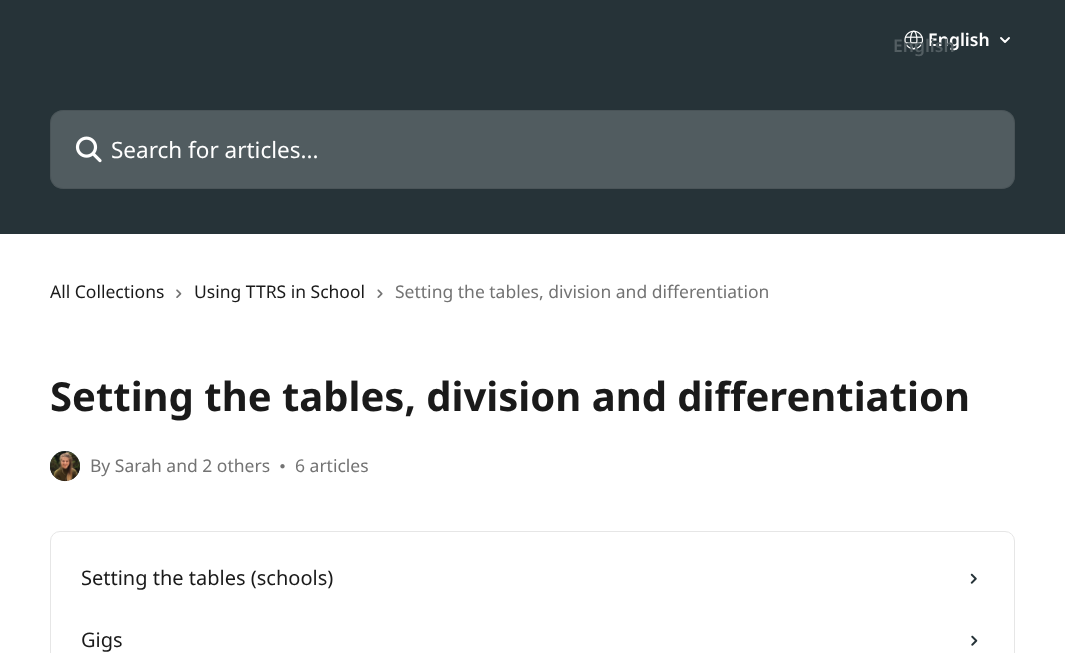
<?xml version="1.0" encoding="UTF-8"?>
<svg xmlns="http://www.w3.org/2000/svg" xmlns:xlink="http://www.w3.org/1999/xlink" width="1065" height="653">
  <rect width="100%" height="100%" fill="#ffffff" />
  <rect width="1065" height="234" fill="#263338" />
  <image x="904" y="30" width="20" height="20" xlink:href="image1.png" />
  <path d="M 1001 38 l 4 4 l 4 -4" fill="none" stroke="#ffffff" stroke-width="1.9" stroke-linecap="round" stroke-linejoin="round" />
  <rect x="50" y="110" width="965" height="79" rx="13" fill="#515c60" />
  <rect x="50.5" y="110.5" width="964" height="78" rx="12.5" fill="none" stroke="#000000" stroke-opacity="0.08" />
  <image x="75" y="136" width="27" height="27" xlink:href="image2.png" />
  <image x="176" y="289" width="6" height="9" xlink:href="image3.png" />
  <image x="377" y="289" width="6" height="9" xlink:href="image4.png" />
  <circle cx="65" cy="466" r="15" fill="#253237" />
  <image x="50" y="451" width="30" height="31" xlink:href="image5.png" />
  <image x="280" y="464" width="5" height="5" xlink:href="image6.png" />
  <rect x="50.5" y="531.5" width="964" height="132" rx="9.5" fill="none" stroke="#e6e6e6" />
  <image x="970" y="573" width="7" height="11" xlink:href="image7.png" />
  <image x="971" y="635" width="7" height="11" xlink:href="image8.png" />
  <text x="928" y="46" style="font-family: Noto Sans; font-size: 17.5px; font-weight: 600; fill: #ffffff">English</text>
  <text x="893" y="52" style="font-family: Noto Sans; font-size: 17.5px; font-weight: 600; fill: #535e62">English</text>
  <text x="111" y="158" style="font-family: Noto Sans; font-size: 22.5px; fill: #ffffff">Search for articles...</text>
  <text x="50" y="298" style="font-family: Noto Sans; font-size: 17.5px; fill: #1a1a1a">All Collections</text>
  <text x="194" y="298" style="font-family: Noto Sans; font-size: 17.5px; fill: #1a1a1a">Using TTRS in School</text>
  <text x="395" y="298" style="font-family: Noto Sans; font-size: 17.5px; fill: #737373">Setting the tables, division and differentiation</text>
  <text x="50" y="411" style="font-family: Noto Sans; font-size: 40px; font-weight: bold; fill: #1a1a1a">Setting the tables, division and differentiation</text>
  <text x="90" y="472" style="font-family: Noto Sans; font-size: 17.5px; fill: #737373">By Sarah and 2 others</text>
  <text x="295" y="472" style="font-family: Noto Sans; font-size: 17.5px; fill: #737373">6 articles</text>
  <text x="81" y="585" style="font-family: Noto Sans; font-size: 20px; fill: #1a1a1a">Setting the tables (schools)</text>
  <text x="81" y="647" style="font-family: Noto Sans; font-size: 20px; fill: #1a1a1a">Gigs</text>
</svg>
